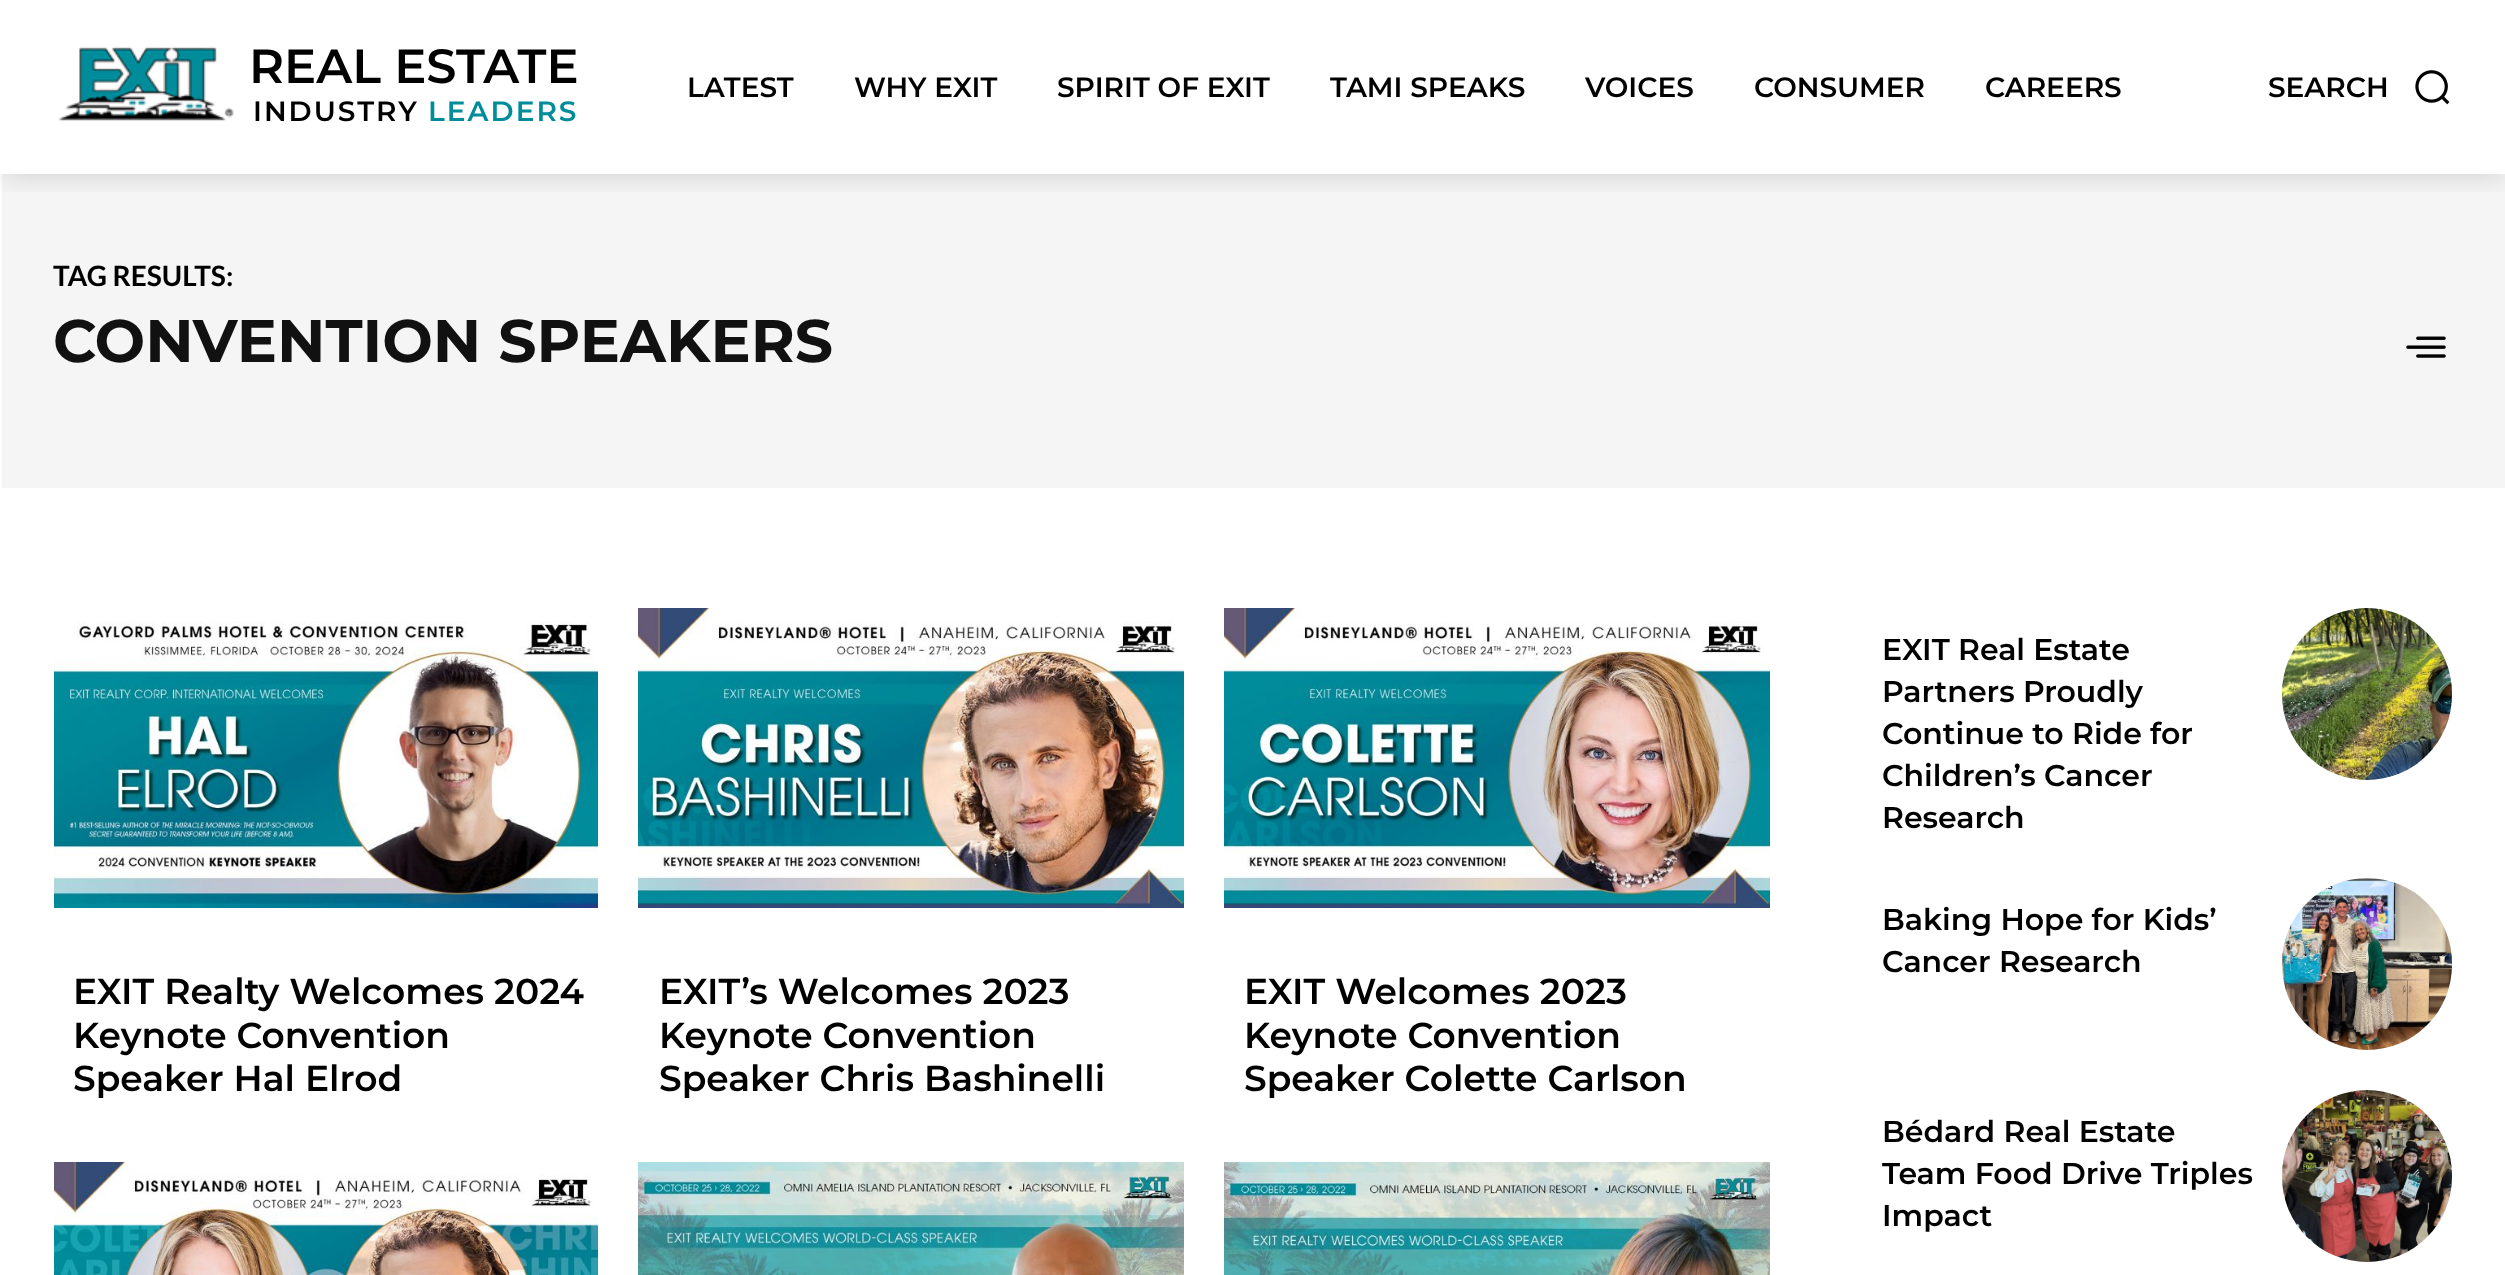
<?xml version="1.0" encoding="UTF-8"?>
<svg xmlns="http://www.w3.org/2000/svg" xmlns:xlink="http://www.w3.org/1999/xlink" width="2505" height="1275">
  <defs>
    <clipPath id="clip1"><rect x="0" y="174" width="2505" height="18" /></clipPath>
  </defs>
  <rect width="100%" height="100%" fill="#ffffff" />
  <rect x="2" y="174" width="2503" height="314" fill="#f5f5f5" />
  <g clip-path="url(#clip1)">
    <rect width="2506" height="174" fill="#000000" fill-opacity="0.16" filter="blur(16px)" />
  </g>
  <image x="58" y="46" width="176" height="76" xlink:href="image1.png" />
  <image x="2415" y="70" width="35" height="35" xlink:href="image2.png" />
  <image x="2406" y="336" width="40" height="22" xlink:href="image3.png" />
  <image x="54" y="621" width="544" height="287" xlink:href="image4.png" />
  <image x="638" y="608" width="546" height="300" xlink:href="image5.png" />
  <image x="1224" y="608" width="546" height="300" xlink:href="image6.png" />
  <image x="54" y="1162" width="544" height="113" xlink:href="image7.png" />
  <image x="638" y="1162" width="546" height="113" xlink:href="image8.png" />
  <image x="1224" y="1162" width="546" height="113" xlink:href="image9.png" />
  <image x="2282" y="608" width="170" height="172" xlink:href="image10.png" />
  <image x="2282" y="878" width="170" height="172" xlink:href="image11.png" />
  <image x="2282" y="1090" width="170" height="172" xlink:href="image12.png" />
  <text x="249" y="83" style="font-family: Montserrat; font-size: 48px; font-weight: 600; fill: #000000">REAL ESTATE</text>
  <text x="253" y="121" style="font-family: Montserrat; font-size: 28px; font-weight: 600; letter-spacing: 2px; fill: #000000">INDUSTRY</text>
  <text x="428" y="121" style="font-family: Montserrat; font-size: 28px; font-weight: 600; letter-spacing: 2px; fill: #008c9a">LEADERS</text>
  <text x="687" y="97" style="font-family: Montserrat; font-size: 28px; font-weight: 600; fill: #000000">LATEST</text>
  <text x="854" y="97" style="font-family: Montserrat; font-size: 28px; font-weight: 600; fill: #000000">WHY EXIT</text>
  <text x="1057" y="97" style="font-family: Montserrat; font-size: 28px; font-weight: 600; fill: #000000">SPIRIT OF EXIT</text>
  <text x="1330" y="97" style="font-family: Montserrat; font-size: 28px; font-weight: 600; fill: #000000">TAMI SPEAKS</text>
  <text x="1585" y="97" style="font-family: Montserrat; font-size: 28px; font-weight: 600; fill: #000000">VOICES</text>
  <text x="1754" y="97" style="font-family: Montserrat; font-size: 28px; font-weight: 600; fill: #000000">CONSUMER</text>
  <text x="1985" y="97" style="font-family: Montserrat; font-size: 28px; font-weight: 600; fill: #000000">CAREERS</text>
  <text x="2268" y="97" style="font-family: Montserrat; font-size: 28px; font-weight: 600; fill: #000000">SEARCH</text>
  <text x="53" y="286" style="font-family: Lato; font-size: 28px; font-weight: bold; fill: #000000">TAG RESULTS:</text>
  <text x="53" y="362" style="font-family: Montserrat; font-size: 60px; font-weight: bold; fill: #111111">CONVENTION SPEAKERS</text>
  <text x="73" y="1004" style="font-family: Montserrat; font-size: 36px; font-weight: 600; fill: #000000">EXIT Realty Welcomes 2024</text>
  <text x="73" y="1048" style="font-family: Montserrat; font-size: 36px; font-weight: 600; fill: #000000">Keynote Convention</text>
  <text x="73" y="1091" style="font-family: Montserrat; font-size: 36px; font-weight: 600; fill: #000000">Speaker Hal Elrod</text>
  <text x="659" y="1004" style="font-family: Montserrat; font-size: 36px; font-weight: 600; fill: #000000">EXIT’s Welcomes 2023</text>
  <text x="659" y="1048" style="font-family: Montserrat; font-size: 36px; font-weight: 600; fill: #000000">Keynote Convention</text>
  <text x="659" y="1091" style="font-family: Montserrat; font-size: 36px; font-weight: 600; fill: #000000">Speaker Chris Bashinelli</text>
  <text x="1244" y="1004" style="font-family: Montserrat; font-size: 36px; font-weight: 600; fill: #000000">EXIT Welcomes 2023</text>
  <text x="1244" y="1048" style="font-family: Montserrat; font-size: 36px; font-weight: 600; fill: #000000">Keynote Convention</text>
  <text x="1244" y="1091" style="font-family: Montserrat; font-size: 36px; font-weight: 600; fill: #000000">Speaker Colette Carlson</text>
  <text x="1882" y="660" style="font-family: Montserrat; font-size: 30px; font-weight: 600; fill: #000000">EXIT Real Estate</text>
  <text x="1882" y="702" style="font-family: Montserrat; font-size: 30px; font-weight: 600; fill: #000000">Partners Proudly</text>
  <text x="1882" y="744" style="font-family: Montserrat; font-size: 30px; font-weight: 600; fill: #000000">Continue to Ride for</text>
  <text x="1882" y="786" style="font-family: Montserrat; font-size: 30px; font-weight: 600; fill: #000000">Children’s Cancer</text>
  <text x="1882" y="828" style="font-family: Montserrat; font-size: 30px; font-weight: 600; fill: #000000">Research</text>
  <text x="1882" y="930" style="font-family: Montserrat; font-size: 30px; font-weight: 600; fill: #000000">Baking Hope for Kids’</text>
  <text x="1882" y="972" style="font-family: Montserrat; font-size: 30px; font-weight: 600; fill: #000000">Cancer Research</text>
  <text x="1882" y="1142" style="font-family: Montserrat; font-size: 30px; font-weight: 600; fill: #000000">Bédard Real Estate</text>
  <text x="1882" y="1184" style="font-family: Montserrat; font-size: 30px; font-weight: 600; fill: #000000">Team Food Drive Triples</text>
  <text x="1882" y="1226" style="font-family: Montserrat; font-size: 30px; font-weight: 600; fill: #000000">Impact</text>
</svg>
